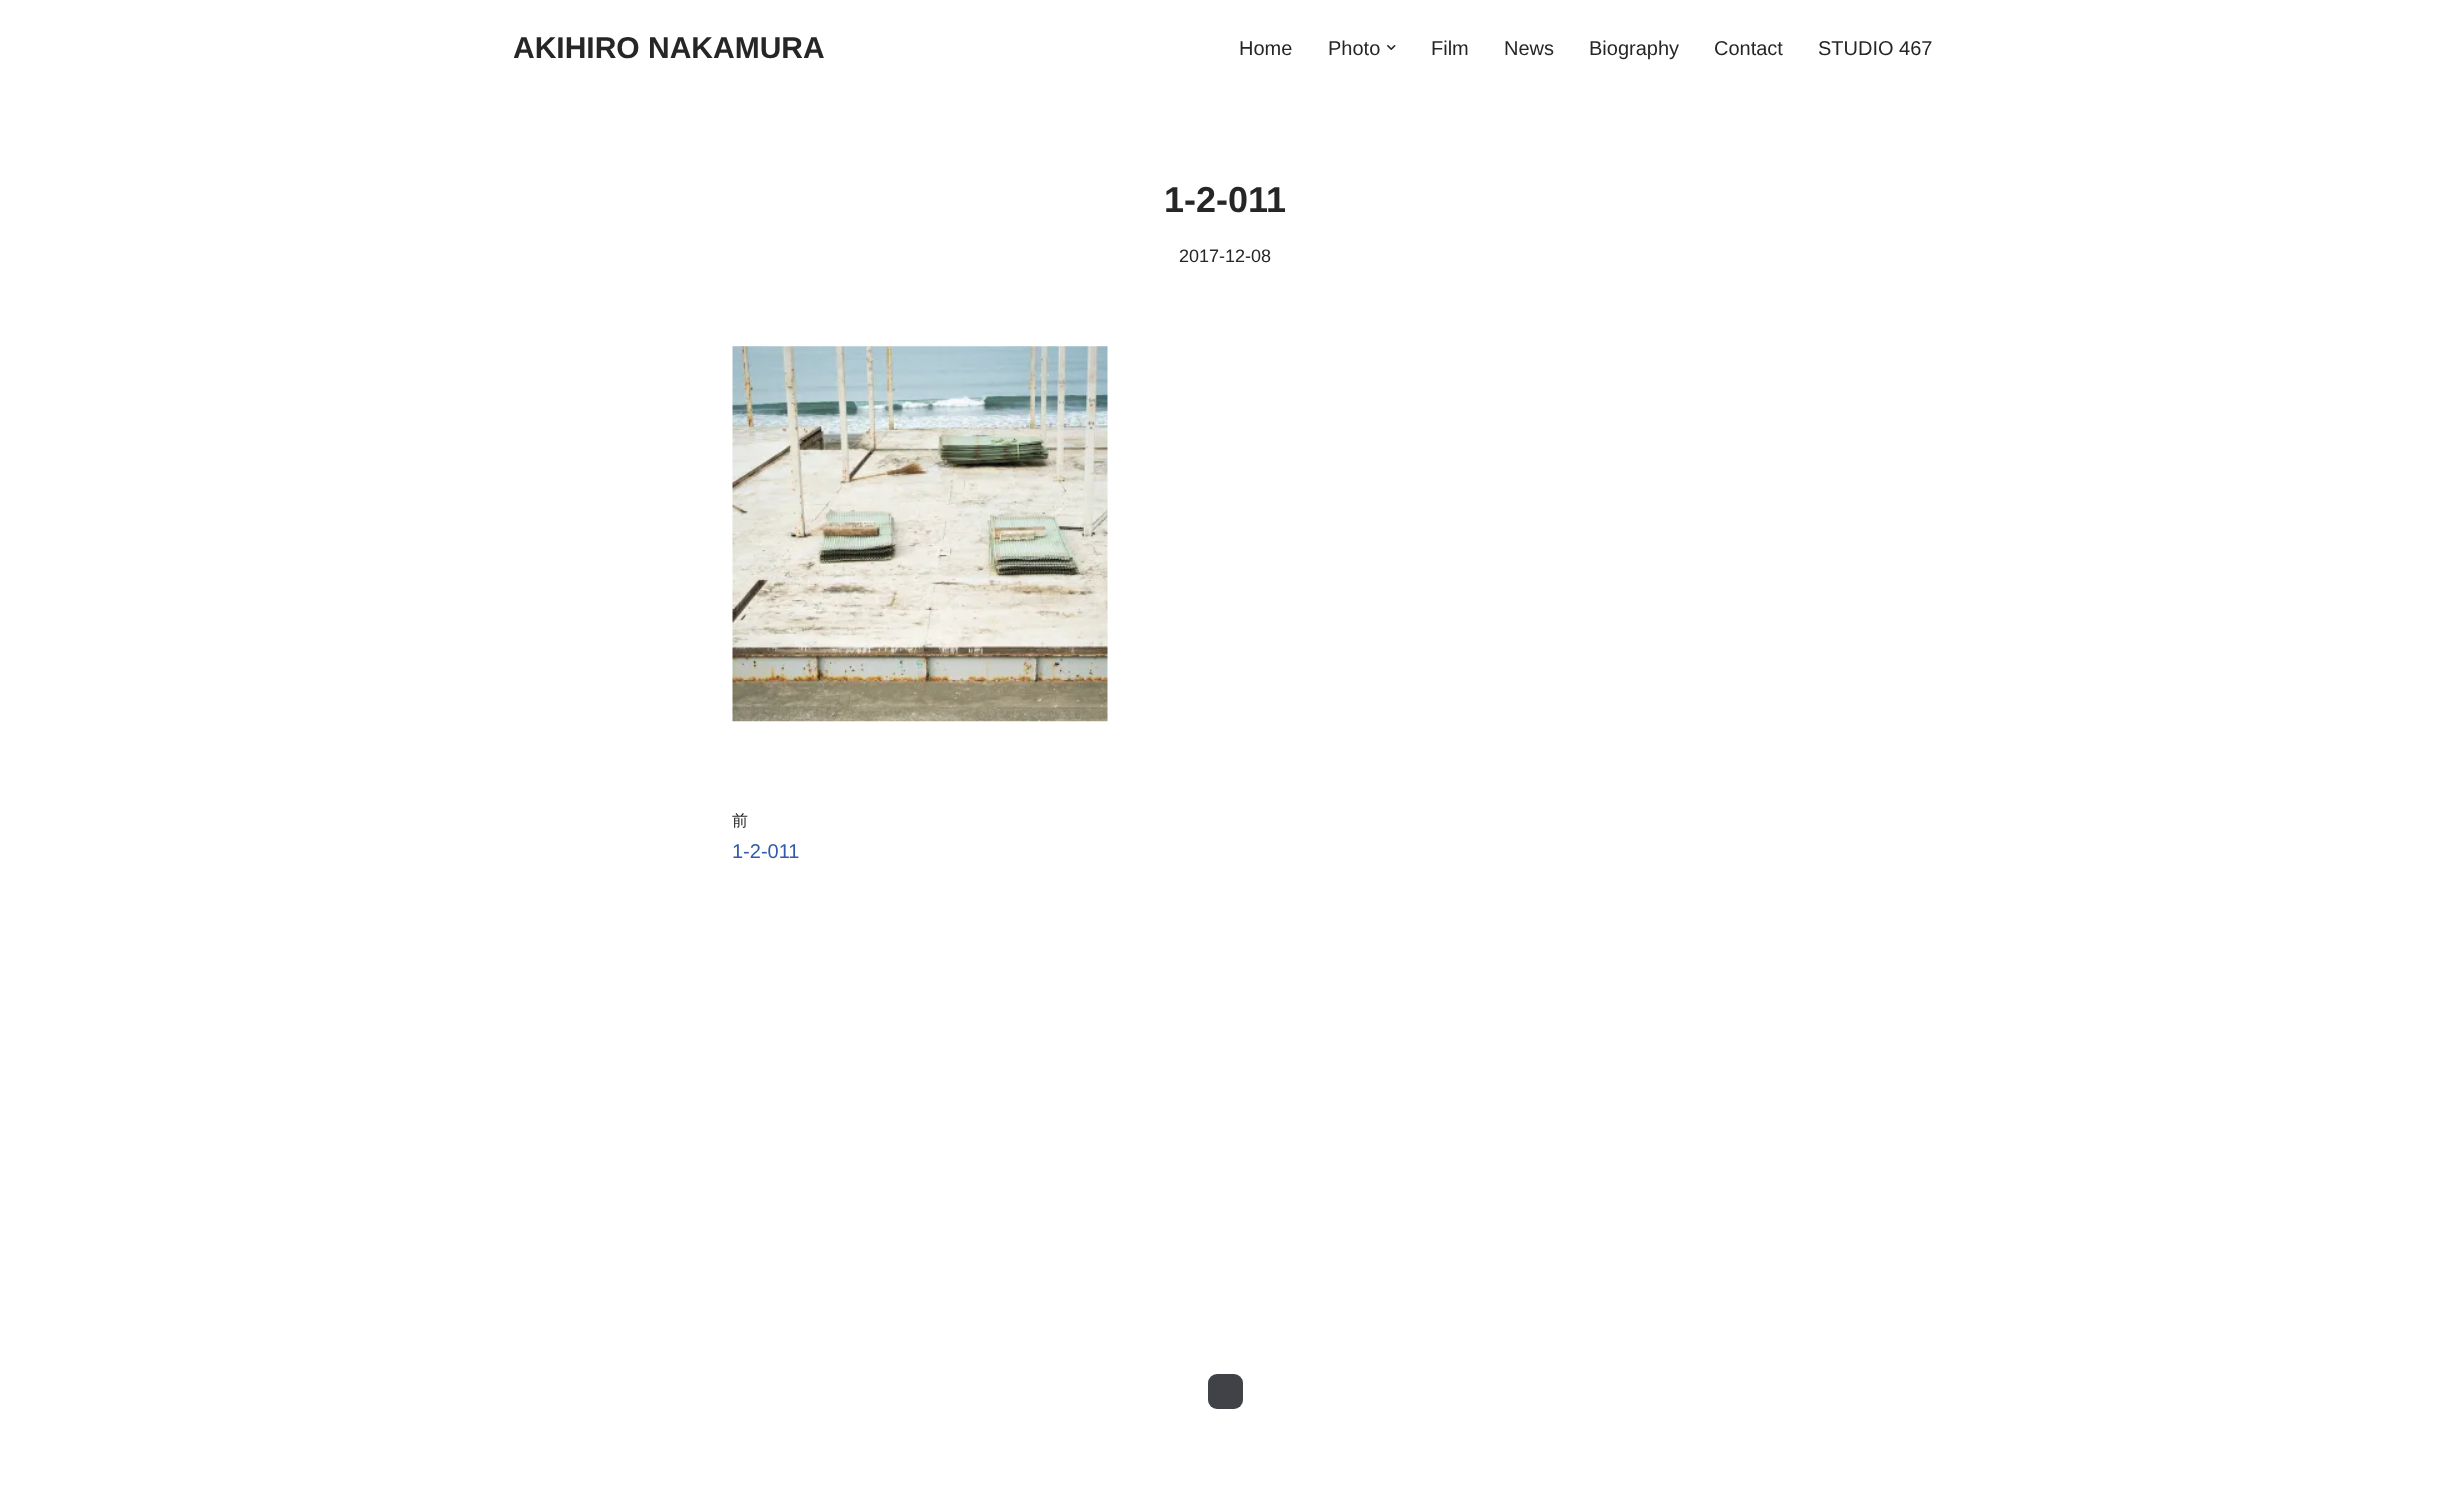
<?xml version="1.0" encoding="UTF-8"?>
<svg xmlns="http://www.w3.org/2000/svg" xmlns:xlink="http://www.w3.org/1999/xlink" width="2449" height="1498">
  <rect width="100%" height="100%" fill="#ffffff" />
  <image x="1387" y="45" width="9" height="5" xlink:href="image1.png" />
  <image x="732" y="346" width="376" height="376" xlink:href="image2.png" />
  <rect x="1208" y="1374" width="35" height="35" rx="9" fill="#404248" />
  <text x="513" y="58" style="font-family: Liberation Sans; font-size: 30px; font-weight: bold; fill: #272626">AKIHIRO NAKAMURA</text>
  <text x="1239" y="55" style="font-family: Liberation Sans; font-size: 20px; fill: #272626">Home</text>
  <text x="1328" y="55" style="font-family: Liberation Sans; font-size: 20px; fill: #272626">Photo</text>
  <text x="1431" y="55" style="font-family: Liberation Sans; font-size: 20px; fill: #272626">Film</text>
  <text x="1504" y="55" style="font-family: Liberation Sans; font-size: 20px; fill: #272626">News</text>
  <text x="1589" y="55" style="font-family: Liberation Sans; font-size: 20px; fill: #272626">Biography</text>
  <text x="1714" y="55" style="font-family: Liberation Sans; font-size: 20px; fill: #272626">Contact</text>
  <text x="1818" y="55" style="font-family: Liberation Sans; font-size: 20px; fill: #272626">STUDIO 467</text>
  <text x="1164" y="212" style="font-family: Liberation Sans; font-size: 36px; font-weight: bold; fill: #272626">1-2-011</text>
  <text x="1179" y="262" style="font-family: Liberation Sans; font-size: 18px; fill: #272626">2017-12-08</text>
  <text x="732" y="826" style="font-family: WenQuanYi Zen Hei; font-size: 16px; font-weight: 500; fill: #272626">前</text>
  <text x="732" y="858" style="font-family: Liberation Sans; font-size: 20px; fill: #2f5aae">1-2-011</text>
</svg>
